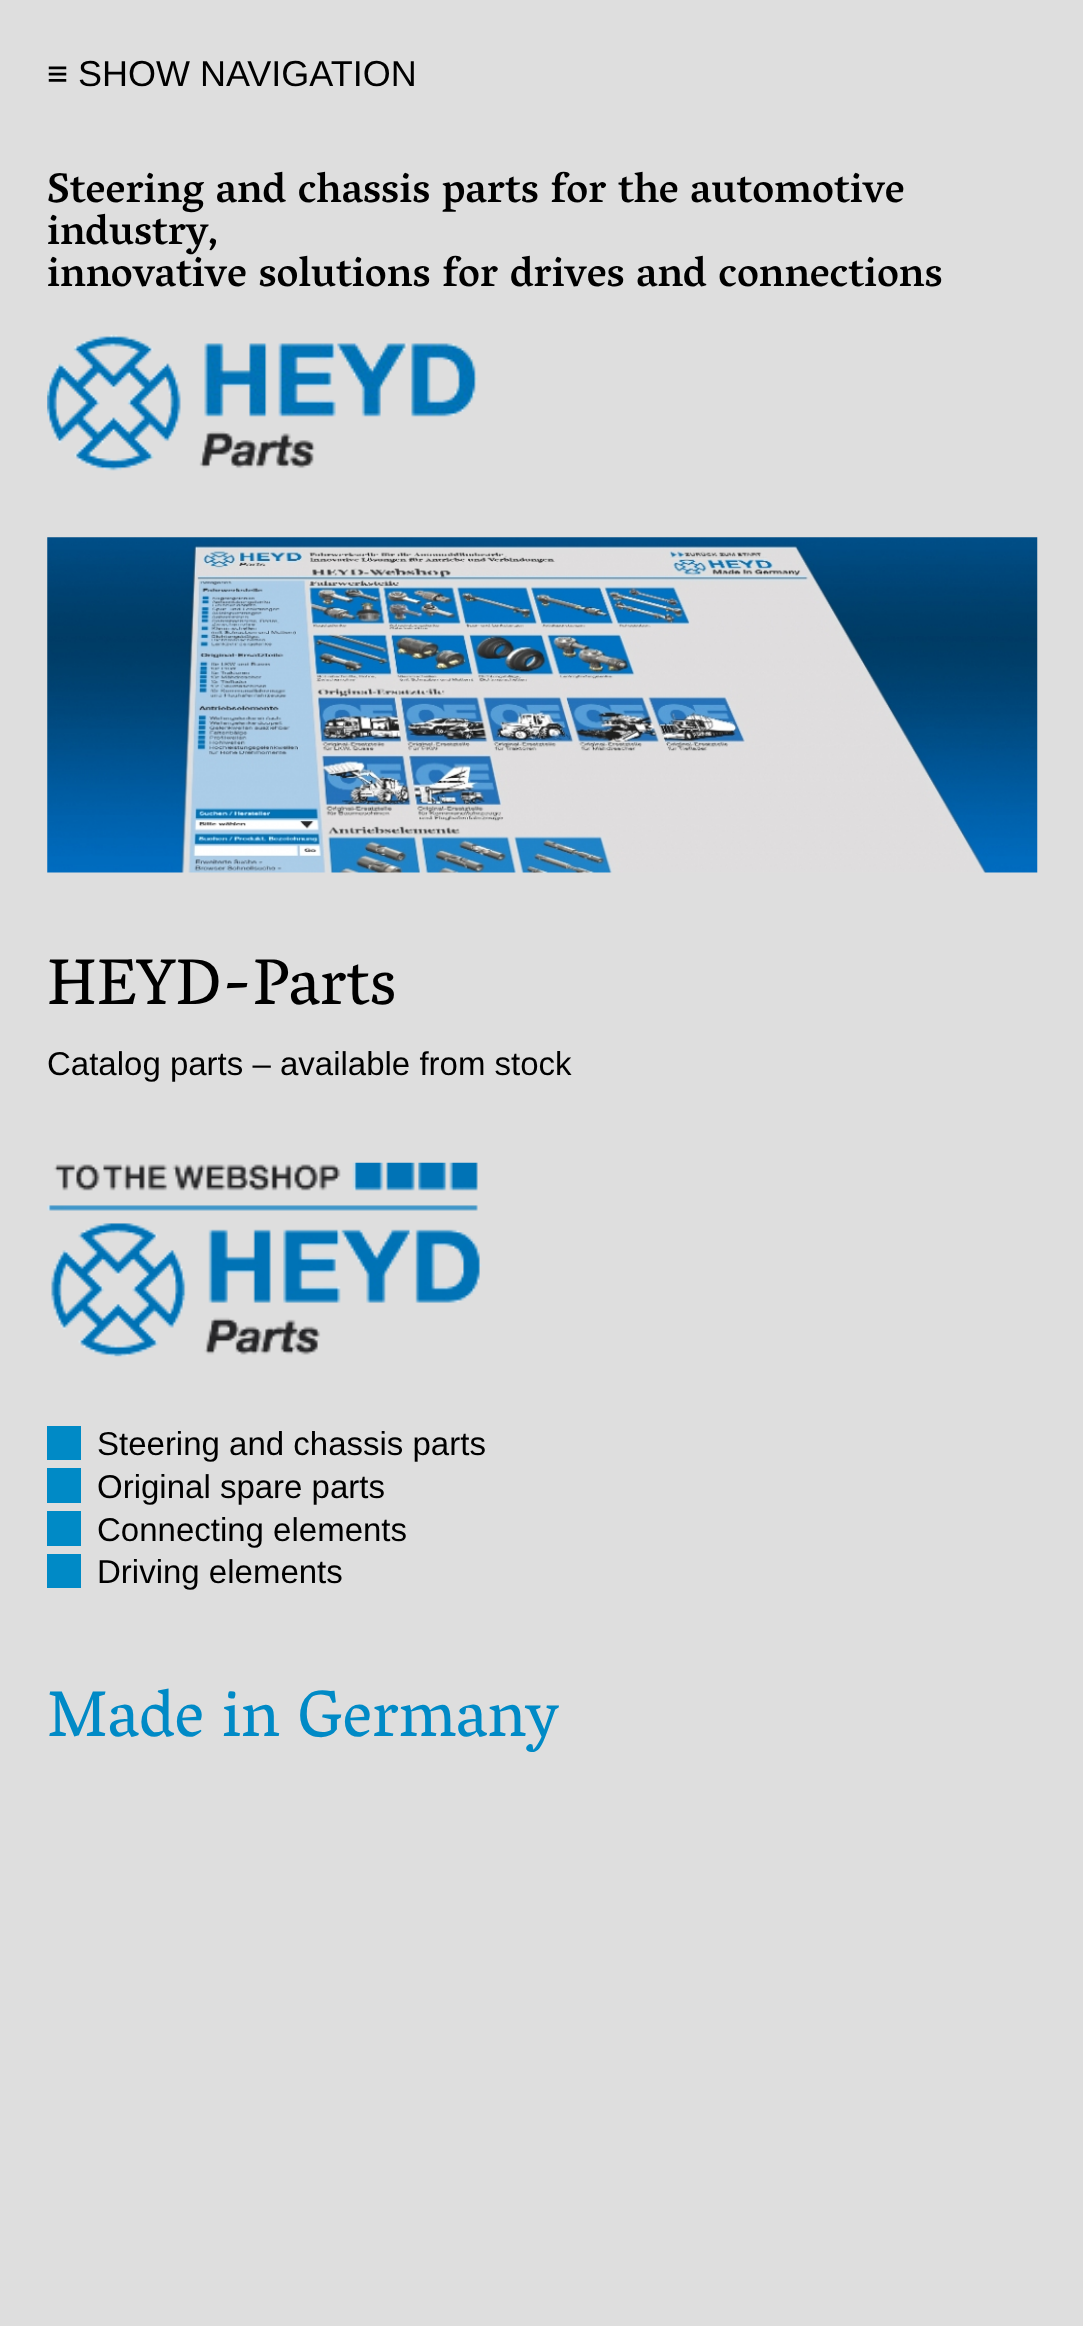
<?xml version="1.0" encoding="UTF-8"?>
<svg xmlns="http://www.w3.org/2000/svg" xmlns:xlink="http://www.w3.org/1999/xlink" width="1083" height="2326">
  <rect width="100%" height="100%" fill="#dedede" />
  <image x="47" y="334" width="431" height="137" xlink:href="image1.png" />
  <image x="47" y="537" width="991" height="336" xlink:href="image2.png" />
  <image x="47" y="1162" width="435" height="195" xlink:href="image3.png" />
  <rect x="47" y="1426" width="34" height="34" fill="#008ac6" />
  <rect x="47" y="1468" width="34" height="35" fill="#008ac6" />
  <rect x="47" y="1511" width="34" height="35" fill="#008ac6" />
  <rect x="47" y="1554" width="34" height="34" fill="#008ac6" />
  <text x="47" y="86" style="font-family: Liberation Sans; font-size: 36px; fill: #000000">≡ SHOW NAVIGATION</text>
  <text x="47" y="202" style="font-family: Vesper Libre; font-size: 42px; font-weight: 500; fill: #000000">Steering and chassis parts for the automotive</text>
  <text x="47" y="244" style="font-family: Vesper Libre; font-size: 42px; font-weight: 500; fill: #000000">industry,</text>
  <text x="47" y="286" style="font-family: Vesper Libre; font-size: 42px; font-weight: 500; fill: #000000">innovative solutions for drives and connections</text>
  <text x="47" y="1004" style="font-family: Vesper Libre; font-size: 66px; fill: #000000">HEYD-Parts</text>
  <text x="47" y="1075" style="font-family: Liberation Sans; font-size: 33px; fill: #000000">Catalog parts – available from stock</text>
  <text x="97" y="1455" style="font-family: Liberation Sans; font-size: 33px; fill: #000000">Steering and chassis parts</text>
  <text x="97" y="1498" style="font-family: Liberation Sans; font-size: 33px; fill: #000000">Original spare parts</text>
  <text x="97" y="1541" style="font-family: Liberation Sans; font-size: 33px; fill: #000000">Connecting elements</text>
  <text x="97" y="1583" style="font-family: Liberation Sans; font-size: 33px; fill: #000000">Driving elements</text>
  <text x="47" y="1736" style="font-family: Vesper Libre; font-size: 66px; fill: #008ac6">Made in Germany</text>
</svg>
